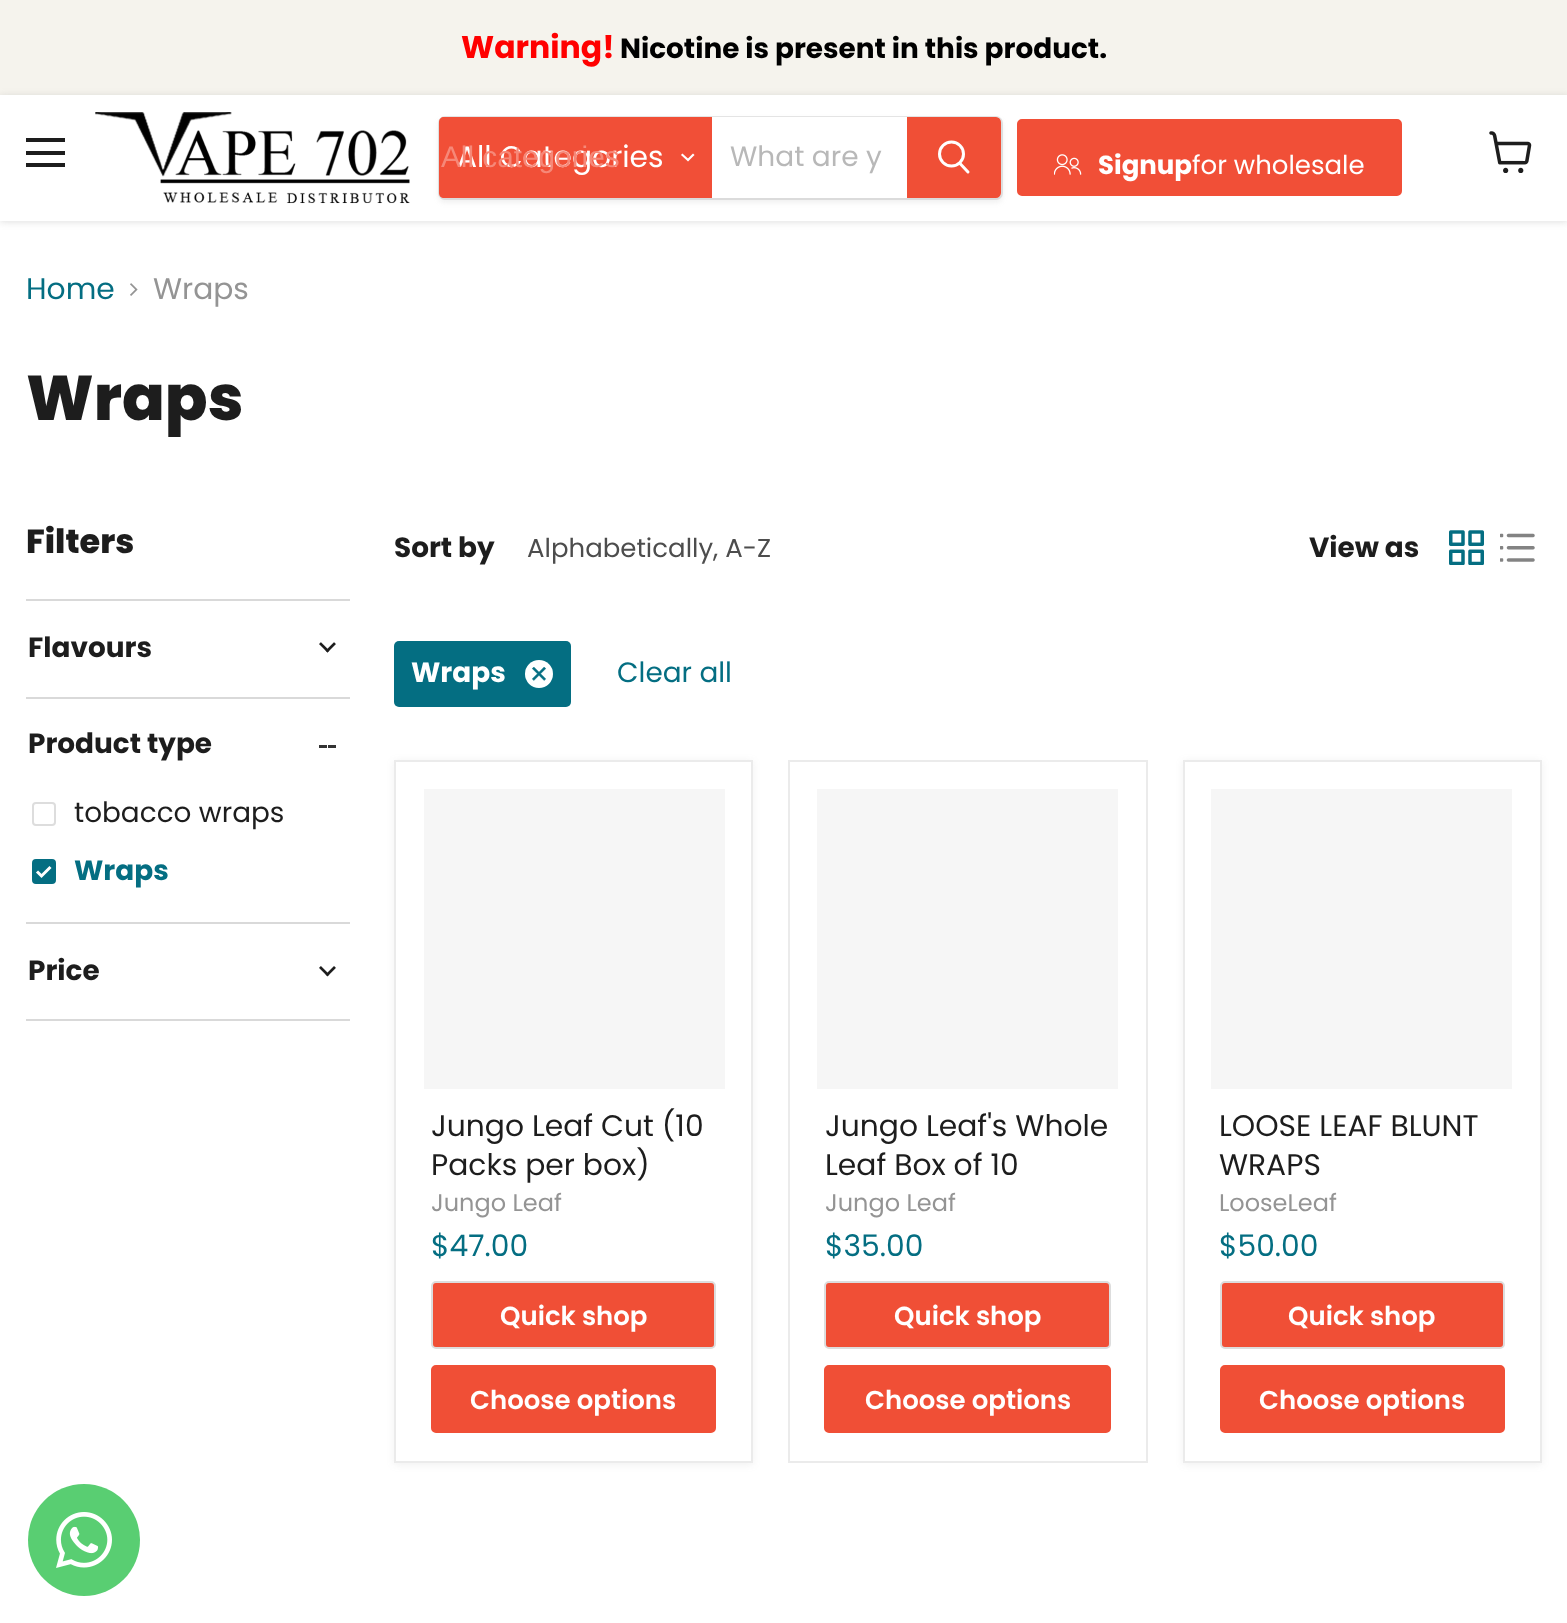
<?xml version="1.0" encoding="UTF-8"?>
<svg xmlns="http://www.w3.org/2000/svg" xmlns:xlink="http://www.w3.org/1999/xlink" width="1567" height="1623">
  <rect width="100%" height="100%" fill="#ffffff" />
  <rect width="1567" height="95" fill="#f5f3ed" />
  <rect y="96" width="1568" height="126" fill="#808080" fill-opacity="0.25" filter="blur(3.5px)" />
  <rect y="95" width="1567" height="126" fill="#ffffff" />
  <rect x="26" y="138" width="39" height="4" fill="#1d1d1d" />
  <rect x="26" y="151" width="39" height="4" fill="#1d1d1d" />
  <rect x="26" y="163" width="39" height="4" fill="#1d1d1d" />
  <image x="95" y="112" width="315" height="92" xlink:href="image1.png" />
  <rect x="438" y="119" width="565" height="84" rx="7" fill="#808080" fill-opacity="0.11" filter="blur(2.5px)" />
  <rect x="439" y="117" width="563" height="82" rx="6" fill="none" stroke="#808080" stroke-opacity="0.2" stroke-width="2" />
  <path d="M 444 117 h 268 v 81 h -268 c -3 0 -5 -2 -5 -5 v -71 c 0 -3 2 -5 5 -5 z" fill="#f14f37" />
  <path d="M 688 160 l 5 -5 m -5 5 l -5.5 -5" fill="none" stroke="#ffffff" stroke-width="2.2" stroke-linecap="square" />
  <rect x="712" y="117" width="195" height="81" fill="#ffffff" />
  <path d="M 908 118 h 88 c 2 0 4 2 4 4 v 71 c 0 2 -2 4 -4 4 h -88 z" fill="#f04f36" stroke="#f04f36" stroke-width="2" />
  <path d="M 968 172 l -8 -8.5" fill="none" stroke="#ffffff" stroke-width="3" stroke-linecap="round" />
  <circle cx="951.5" cy="154" r="12" fill="none" stroke="#ffffff" stroke-width="3" />
  <rect x="1018" y="120" width="383" height="75" rx="4" fill="#f14f37" stroke="#f14f37" stroke-width="2" />
  <image x="1054" y="154" width="28" height="21" xlink:href="image2.png" />
  <image x="1489" y="131" width="43" height="42" xlink:href="image3.png" />
  <image x="130" y="283" width="8" height="13" xlink:href="image4.png" />
  <rect x="26" y="599" width="324" height="2" fill="#d9d9d9" />
  <image x="319" y="642" width="17" height="11" xlink:href="image5.png" />
  <rect x="26" y="697" width="324" height="2" fill="#d9d9d9" />
  <image x="319" y="745" width="17" height="3" xlink:href="image6.png" />
  <rect x="33" y="803" width="22" height="22" rx="3" fill="none" stroke="#dddddd" stroke-width="2" />
  <rect x="33" y="860" width="22" height="23" rx="3" fill="#046e82" stroke="#046e82" stroke-width="2" />
  <path d="M 37 871.5 l 4.5 4.5 l 9 -9" fill="none" stroke="#ffffff" stroke-width="3" />
  <rect x="26" y="922" width="324" height="2" fill="#d9d9d9" />
  <rect x="26" y="1019" width="324" height="2" fill="#d9d9d9" />
  <image x="319" y="966" width="17" height="11" xlink:href="image7.png" />
  <image x="1449" y="530" width="35" height="35" xlink:href="image8.png" />
  <image x="1500" y="533" width="35" height="29" xlink:href="image9.png" />
  <rect x="394" y="641" width="177" height="66" rx="5" fill="#046e82" />
  <circle cx="539" cy="674" r="14" fill="#ffffff" />
  <image x="532" y="667" width="14" height="14" xlink:href="image10.png" />
  <rect x="394" y="761" width="359" height="704" fill="#808080" fill-opacity="0.11" filter="blur(3.5px)" />
  <rect x="395" y="761" width="357" height="701" fill="#ffffff" stroke="#ebebeb" stroke-width="2" />
  <rect x="424" y="789" width="301" height="300" fill="#f6f6f6" />
  <rect x="432" y="1282" width="283" height="66" rx="4" fill="#f04f36" stroke="#dddddd" stroke-width="2" />
  <rect x="432" y="1366" width="283" height="66" rx="4" fill="#f04f36" stroke="#f04f36" stroke-width="2" />
  <rect x="789" y="761" width="358" height="701" fill="none" stroke="#ebebeb" stroke-width="2" />
  <rect x="817" y="789" width="301" height="300" fill="#f6f6f6" />
  <rect x="825" y="1282" width="285" height="66" rx="4" fill="#f04f36" stroke="#dddddd" stroke-width="2" />
  <rect x="825" y="1366" width="285" height="66" rx="4" fill="#f04f36" stroke="#f04f36" stroke-width="2" />
  <rect x="1183" y="761" width="359" height="704" fill="#808080" fill-opacity="0.11" filter="blur(3.5px)" />
  <rect x="1184" y="761" width="357" height="701" fill="#ffffff" stroke="#ebebeb" stroke-width="2" />
  <rect x="1211" y="789" width="301" height="300" fill="#f6f6f6" />
  <rect x="1221" y="1282" width="283" height="66" rx="4" fill="#f04f36" stroke="#dddddd" stroke-width="2" />
  <rect x="1221" y="1366" width="283" height="66" rx="4" fill="#f04f36" stroke="#f04f36" stroke-width="2" />
  <circle cx="84" cy="1540" r="56" fill="#59ce72" />
  <image x="56" y="1512" width="56" height="56" xlink:href="image11.png" />
  <text x="461" y="58" style="font-family: Poppins; font-size: 31.5px; font-weight: bold; fill: #ff0000">Warning!</text>
  <text x="620" y="58" style="font-family: Poppins; font-size: 27.9px; font-weight: bold; fill: #000000">Nicotine is present in this product.</text>
  <text x="457" y="167" style="font-family: Poppins; font-size: 29.75px; fill: #ffffff">All Categories</text>
  <text x="441" y="167" style="font-family: Liberation Sans; font-size: 29.75px; fill: #f68878">All categories</text>
  <text x="730" y="166" style="font-family: Poppins; font-size: 28px; fill: #b8b8b8">What are y</text>
  <text x="1098" y="174" style="font-family: Poppins; font-size: 26px; font-weight: bold; fill: #ffffff">Signup</text>
  <text x="1192" y="174" style="font-family: Poppins; font-size: 26px; fill: #ffffff">for wholesale</text>
  <text x="26" y="299" style="font-family: Poppins; font-size: 29.75px; fill: #046e82">Home</text>
  <text x="153" y="299" style="font-family: Poppins; font-size: 29.75px; fill: #949494">Wraps</text>
  <text x="26" y="420" style="font-family: Poppins; font-size: 63px; font-weight: 800; fill: #1d1d1d">Wraps</text>
  <text x="26" y="553" style="font-family: Poppins; font-size: 33.5px; font-weight: 800; fill: #1d1d1d">Filters</text>
  <text x="28" y="657" style="font-family: Poppins; font-size: 27.9px; font-weight: bold; fill: #1d1d1d">Flavours</text>
  <text x="28" y="753" style="font-family: Poppins; font-size: 27.9px; font-weight: bold; fill: #1d1d1d">Product type</text>
  <text x="74" y="822" style="font-family: Poppins; font-size: 27.9px; fill: #1d1d1d">tobacco wraps</text>
  <text x="74" y="880" style="font-family: Poppins; font-size: 27.9px; font-weight: bold; fill: #046e82">Wraps</text>
  <text x="28" y="980" style="font-family: Poppins; font-size: 27.9px; font-weight: bold; fill: #1d1d1d">Price</text>
  <text x="394" y="557" style="font-family: Poppins; font-size: 27.9px; font-weight: bold; fill: #1d1d1d">Sort by</text>
  <text x="527" y="557" style="font-family: Poppins; font-size: 26px; fill: #4d4d4d">Alphabetically, A-Z</text>
  <text x="1309" y="557" style="font-family: Poppins; font-size: 27.9px; font-weight: bold; fill: #1d1d1d">View as</text>
  <text x="411" y="682" style="font-family: Poppins; font-size: 27.9px; font-weight: bold; fill: #ffffff">Wraps</text>
  <text x="617" y="682" style="font-family: Poppins; font-size: 27.9px; fill: #046e82">Clear all</text>
  <text x="431" y="1136" style="font-family: Poppins; font-size: 29.75px; fill: #1d1d1d">Jungo Leaf Cut (10</text>
  <text x="431" y="1175" style="font-family: Poppins; font-size: 29.75px; fill: #1d1d1d">Packs per box)</text>
  <text x="431" y="1211" style="font-family: Poppins; font-size: 24px; fill: #949494">Jungo Leaf</text>
  <text x="431" y="1256" style="font-family: Poppins; font-size: 29.75px; fill: #046e82">$47.00</text>
  <text x="500" y="1325" style="font-family: Poppins; font-size: 26px; font-weight: 600; fill: #ffffff">Quick shop</text>
  <text x="470" y="1409" style="font-family: Poppins; font-size: 26px; font-weight: 600; fill: #ffffff">Choose options</text>
  <text x="825" y="1136" style="font-family: Poppins; font-size: 29.75px; fill: #1d1d1d">Jungo Leaf's Whole</text>
  <text x="825" y="1175" style="font-family: Poppins; font-size: 29.75px; fill: #1d1d1d">Leaf Box of 10</text>
  <text x="825" y="1211" style="font-family: Poppins; font-size: 24px; fill: #949494">Jungo Leaf</text>
  <text x="825" y="1256" style="font-family: Poppins; font-size: 29.75px; fill: #046e82">$35.00</text>
  <text x="894" y="1325" style="font-family: Poppins; font-size: 26px; font-weight: 600; fill: #ffffff">Quick shop</text>
  <text x="865" y="1409" style="font-family: Poppins; font-size: 26px; font-weight: 600; fill: #ffffff">Choose options</text>
  <text x="1219" y="1136" style="font-family: Poppins; font-size: 29.75px; fill: #1d1d1d">LOOSE LEAF BLUNT</text>
  <text x="1219" y="1175" style="font-family: Poppins; font-size: 29.75px; fill: #1d1d1d">WRAPS</text>
  <text x="1219" y="1211" style="font-family: Poppins; font-size: 24px; fill: #949494">LooseLeaf</text>
  <text x="1219" y="1256" style="font-family: Poppins; font-size: 29.75px; fill: #046e82">$50.00</text>
  <text x="1288" y="1325" style="font-family: Poppins; font-size: 26px; font-weight: 600; fill: #ffffff">Quick shop</text>
  <text x="1259" y="1409" style="font-family: Poppins; font-size: 26px; font-weight: 600; fill: #ffffff">Choose options</text>
</svg>
